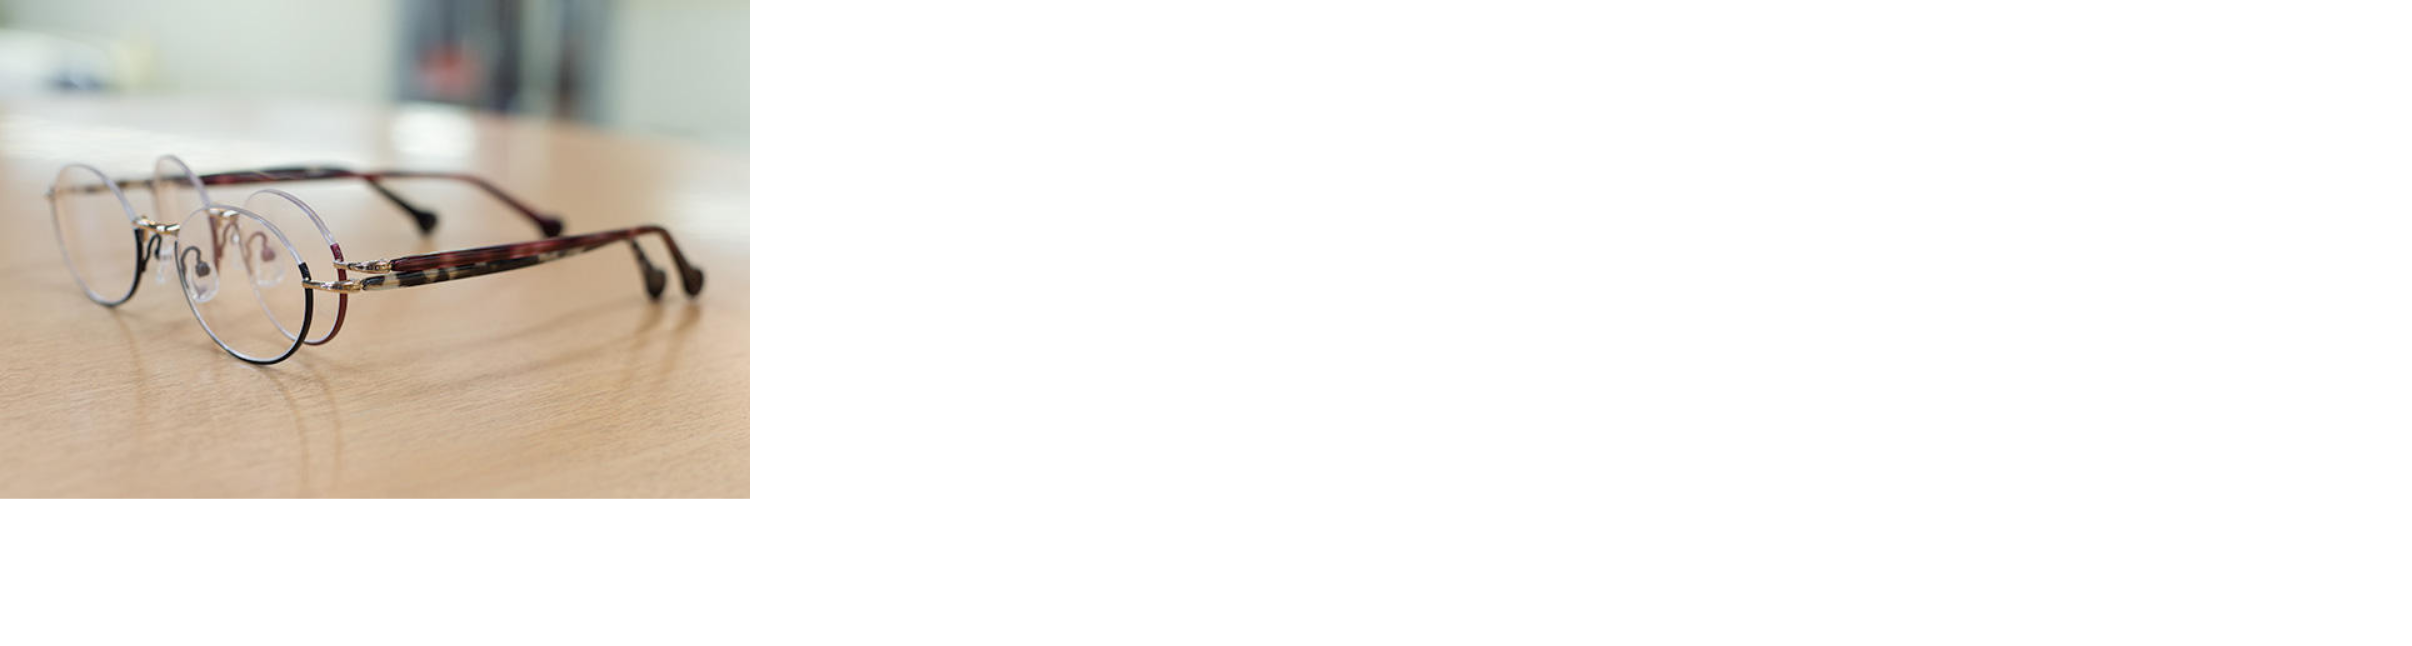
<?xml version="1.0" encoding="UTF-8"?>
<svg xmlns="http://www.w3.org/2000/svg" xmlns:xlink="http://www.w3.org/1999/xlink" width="2412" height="646">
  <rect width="100%" height="100%" fill="#ffffff" />
  <image x="0" y="0" width="750" height="499" xlink:href="image1.png" />
</svg>
